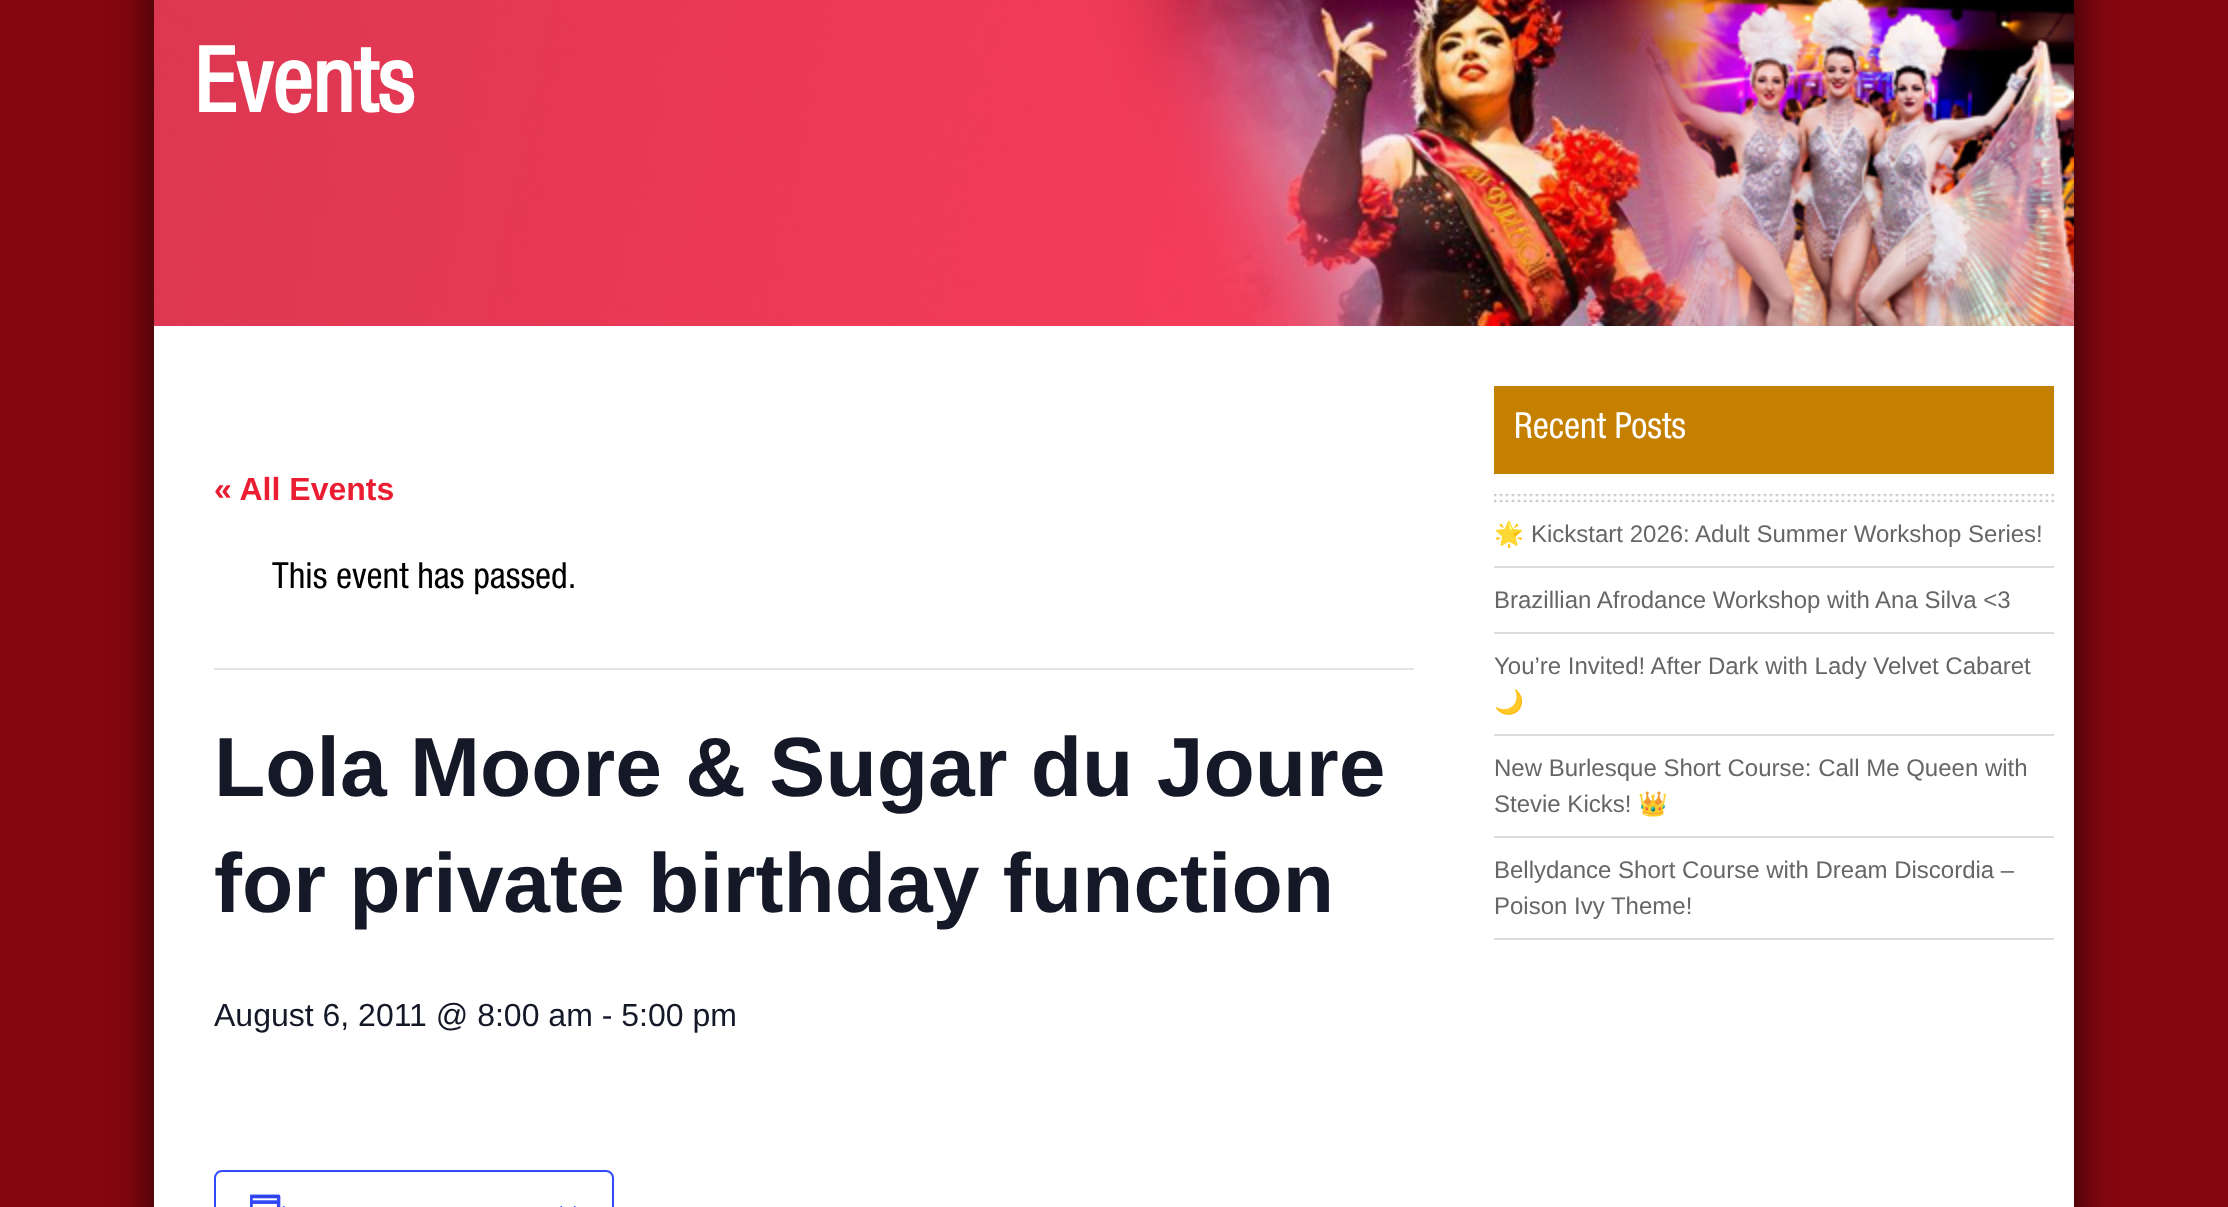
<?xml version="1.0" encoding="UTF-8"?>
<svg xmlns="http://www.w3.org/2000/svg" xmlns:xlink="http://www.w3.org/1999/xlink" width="2228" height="1207">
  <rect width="100%" height="100%" fill="#85060f" />
  <rect x="154" y="-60" width="1920" height="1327" fill="#000000" fill-opacity="0.75" filter="blur(20px)" />
  <rect x="154" y="326" width="1920" height="881" fill="#ffffff" />
  <image x="154" y="0" width="1920" height="326" xlink:href="image1.png" />
  <rect x="214" y="668" width="1200" height="2" fill="#e4e4e4" />
  <rect x="215" y="1171" width="398" height="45" rx="7" fill="none" stroke="#334aff" stroke-width="2" />
  <image x="250" y="1194" width="35" height="13" xlink:href="image2.png" />
  <image x="560" y="1206" width="16" height="1" xlink:href="image3.png" />
  <rect x="1494" y="386" width="560" height="88" fill="#c58000" />
  <image x="1494" y="494" width="560" height="8" xlink:href="image4.png" />
  <rect x="1494" y="566" width="560" height="2" fill="#dddddd" />
  <rect x="1494" y="632" width="560" height="2" fill="#dddddd" />
  <rect x="1494" y="734" width="560" height="2" fill="#dddddd" />
  <rect x="1494" y="836" width="560" height="2" fill="#dddddd" />
  <rect x="1494" y="938" width="560" height="2" fill="#dddddd" />
  <text x="194" y="112" style="font-family: Helvetica Neue; font-size: 90px; font-weight: bold; fill: #ffffff">Events</text>
  <text x="214" y="500" style="font-family: Liberation Sans; font-size: 32px; font-weight: bold; fill: #eb1d32">« All Events</text>
  <text x="272" y="588" style="font-family: Helvetica Neue; font-size: 36px; fill: #000000">This event has passed.</text>
  <text x="214" y="796" style="font-family: Liberation Sans; font-size: 84px; font-weight: bold; fill: #141827">Lola Moore &amp; Sugar du Joure</text>
  <text x="214" y="912" style="font-family: Liberation Sans; font-size: 84px; font-weight: bold; fill: #141827">for private birthday function</text>
  <text x="214" y="1026" style="font-family: Liberation Sans; font-size: 32px; fill: #141827">August 6, 2011 @ 8:00 am - 5:00 pm</text>
  <text x="1514" y="438" style="font-family: Helvetica Neue; font-size: 36px; fill: #ffffff">Recent Posts</text>
  <text x="1494" y="542" style="font-family: Noto Color Emoji; font-size: 24px; fill: #666666">🌟</text>
  <text x="1531" y="542" style="font-family: Liberation Sans; font-size: 24px; fill: #666666">Kickstart 2026: Adult Summer Workshop Series!</text>
  <text x="1494" y="608" style="font-family: Liberation Sans; font-size: 24px; fill: #666666">Brazillian Afrodance Workshop with Ana Silva &lt;3</text>
  <text x="1494" y="674" style="font-family: Liberation Sans; font-size: 24px; fill: #666666">You’re Invited! After Dark with Lady Velvet Cabaret</text>
  <text x="1494" y="710" style="font-family: Noto Color Emoji; font-size: 24px; fill: #666666">🌙</text>
  <text x="1494" y="776" style="font-family: Liberation Sans; font-size: 24px; fill: #666666">New Burlesque Short Course: Call Me Queen with</text>
  <text x="1494" y="812" style="font-family: Liberation Sans; font-size: 24px; fill: #666666">Stevie Kicks!</text>
  <text x="1638" y="812" style="font-family: Noto Color Emoji; font-size: 24px; fill: #666666">👑</text>
  <text x="1494" y="878" style="font-family: Liberation Sans; font-size: 24px; fill: #666666">Bellydance Short Course with Dream Discordia –</text>
  <text x="1494" y="914" style="font-family: Liberation Sans; font-size: 24px; fill: #666666">Poison Ivy Theme!</text>
</svg>
